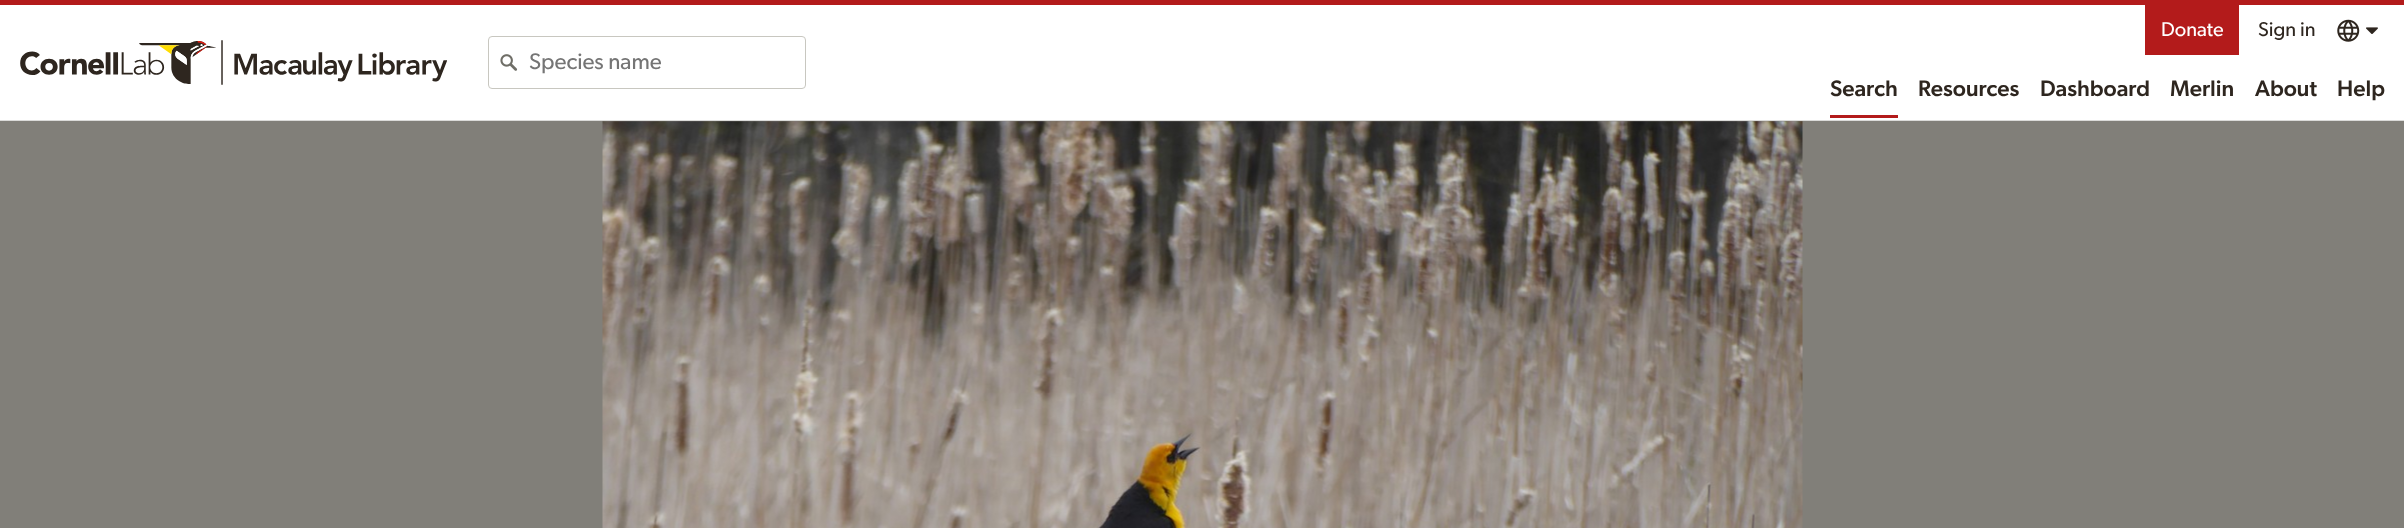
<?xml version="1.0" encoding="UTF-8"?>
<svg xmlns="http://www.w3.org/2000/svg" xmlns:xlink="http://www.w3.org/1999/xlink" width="2404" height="528">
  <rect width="100%" height="100%" fill="#ffffff" />
  <rect width="2404" height="5" fill="#b31b1b" />
  <rect y="120" width="2404" height="1" fill="#dbdbd9" />
  <image x="20" y="40" width="427" height="45" xlink:href="image1.png" />
  <rect x="488.5" y="36.5" width="317" height="52" rx="3.5" fill="none" stroke="#c8c7c0" />
  <image x="500" y="54" width="18" height="17" xlink:href="image2.png" />
  <rect x="2145" y="5" width="94" height="50" fill="#b31b1b" />
  <image x="2337" y="19" width="23" height="23" xlink:href="image3.png" />
  <image x="2366" y="27" width="12" height="7" xlink:href="image4.png" />
  <rect x="1830" y="115" width="68" height="3" fill="#b31b1b" />
  <rect y="121" width="2404" height="407" fill="#817f79" />
  <image x="602" y="121" width="1201" height="407" xlink:href="image5.png" />
  <text x="529" y="69" style="font-family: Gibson; font-size: 22.5px; fill: #757575">Species name</text>
  <text x="2161" y="36" style="font-family: Gibson; font-size: 20px; fill: #ffffff">Donate</text>
  <text x="2258" y="36" style="font-family: Gibson; font-size: 20px; fill: #2e261f">Sign in</text>
  <text x="1830" y="96" style="font-family: Gibson; font-size: 22.5px; font-weight: 500; fill: #2e261f">Search</text>
  <text x="1918" y="96" style="font-family: Gibson; font-size: 22.5px; font-weight: 500; fill: #2e261f">Resources</text>
  <text x="2040" y="96" style="font-family: Gibson; font-size: 22.5px; font-weight: 500; fill: #2e261f">Dashboard</text>
  <text x="2170" y="96" style="font-family: Gibson; font-size: 22.5px; font-weight: 500; fill: #2e261f">Merlin</text>
  <text x="2255" y="96" style="font-family: Gibson; font-size: 22.5px; font-weight: 500; fill: #2e261f">About</text>
  <text x="2337" y="96" style="font-family: Gibson; font-size: 22.5px; font-weight: 500; fill: #2e261f">Help</text>
</svg>
